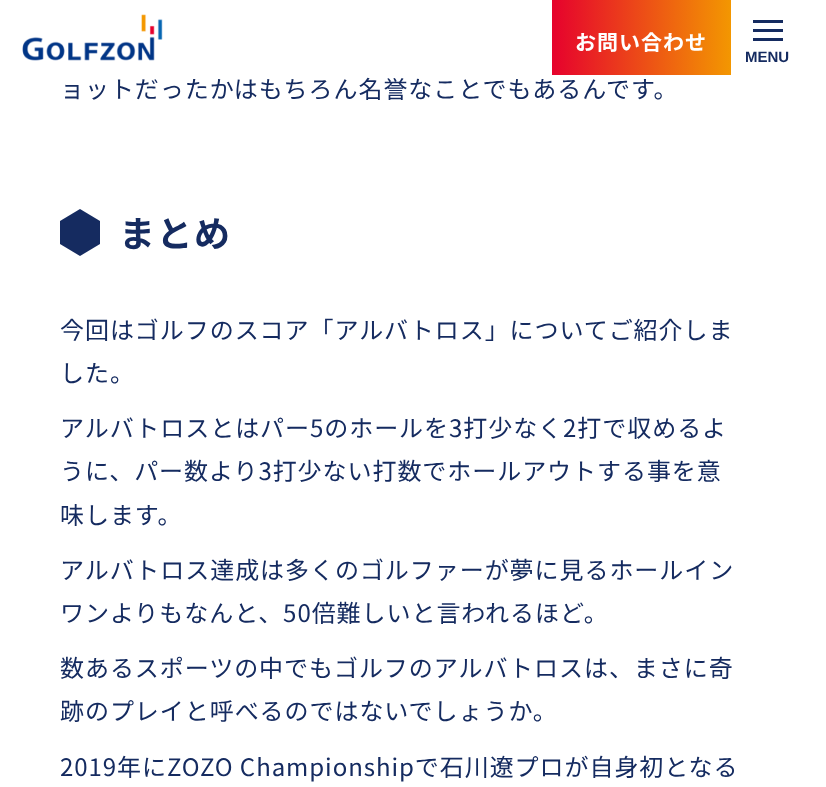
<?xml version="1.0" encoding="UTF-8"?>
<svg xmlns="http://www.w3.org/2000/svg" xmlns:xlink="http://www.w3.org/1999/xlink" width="826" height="787">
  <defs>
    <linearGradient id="g1" gradientUnits="userSpaceOnUse" x1="372" y1="38" x2="731" y2="37"><stop offset="0.5" stop-color="#e6012d" /><stop offset="1" stop-color="#f39701" /></linearGradient>
  </defs>
  <rect width="100%" height="100%" fill="#ffffff" />
  <image x="22" y="14" width="141" height="47" xlink:href="image1.png" />
  <rect x="552" width="179" height="75" fill="url(#g1)" />
  <rect x="753" y="29" width="30" height="3" fill="#152b60" />
  <rect x="753" y="20" width="30" height="3" fill="#152b60" />
  <rect x="753" y="38" width="30" height="3" fill="#152b60" />
  <path d="M 80 256 l 20 -12 v -23 l -20 -12 l -20 12 v 23 z" fill="#152b60" />
  <text x="575" y="50" style="font-family: Noto Sans JP; font-size: 21px; font-weight: bold; letter-spacing: 1px; fill: #ffffff">お問い合わせ</text>
  <text x="745" y="62" style="font-family: Liberation Sans; font-size: 15px; font-weight: bold; fill: #152b60">MENU</text>
  <text x="60" y="98" style="font-family: Noto Sans JP; font-size: 24px; letter-spacing: 0.95px; fill: #152b60">ョットだったかはもちろん名誉なことでもあるんです。</text>
  <text x="119" y="247" style="font-family: Noto Sans JP; font-size: 36px; font-weight: bold; letter-spacing: 1.5px; fill: #152b60">まとめ</text>
  <text x="60" y="339" style="font-family: Noto Sans JP; font-size: 24px; letter-spacing: 0.95px; fill: #152b60">今回はゴルフのスコア「アルバトロス」についてご紹介しま</text>
  <text x="60" y="382" style="font-family: Noto Sans JP; font-size: 24px; letter-spacing: 0.95px; fill: #152b60">した。</text>
  <text x="60" y="437" style="font-family: Noto Sans JP; font-size: 24px; letter-spacing: 0.95px; fill: #152b60">アルバトロスとはパー5のホールを3打少なく2打で収めるよ</text>
  <text x="60" y="480" style="font-family: Noto Sans JP; font-size: 24px; letter-spacing: 0.95px; fill: #152b60">うに、パー数より3打少ない打数でホールアウトする事を意</text>
  <text x="60" y="524" style="font-family: Noto Sans JP; font-size: 24px; letter-spacing: 0.95px; fill: #152b60">味します。</text>
  <text x="60" y="579" style="font-family: Noto Sans JP; font-size: 24px; letter-spacing: 0.95px; fill: #152b60">アルバトロス達成は多くのゴルファーが夢に見るホールイン</text>
  <text x="60" y="622" style="font-family: Noto Sans JP; font-size: 24px; letter-spacing: 0.95px; fill: #152b60">ワンよりもなんと、50倍難しいと言われるほど。</text>
  <text x="60" y="677" style="font-family: Noto Sans JP; font-size: 24px; letter-spacing: 0.95px; fill: #152b60">数あるスポーツの中でもゴルフのアルバトロスは、まさに奇</text>
  <text x="60" y="720" style="font-family: Noto Sans JP; font-size: 24px; letter-spacing: 0.95px; fill: #152b60">跡のプレイと呼べるのではないでしょうか。</text>
  <text x="60" y="776" style="font-family: Noto Sans JP; font-size: 24px; letter-spacing: 0.95px; fill: #152b60">2019年にZOZO Championshipで石川遼プロが自身初となる</text>
</svg>
